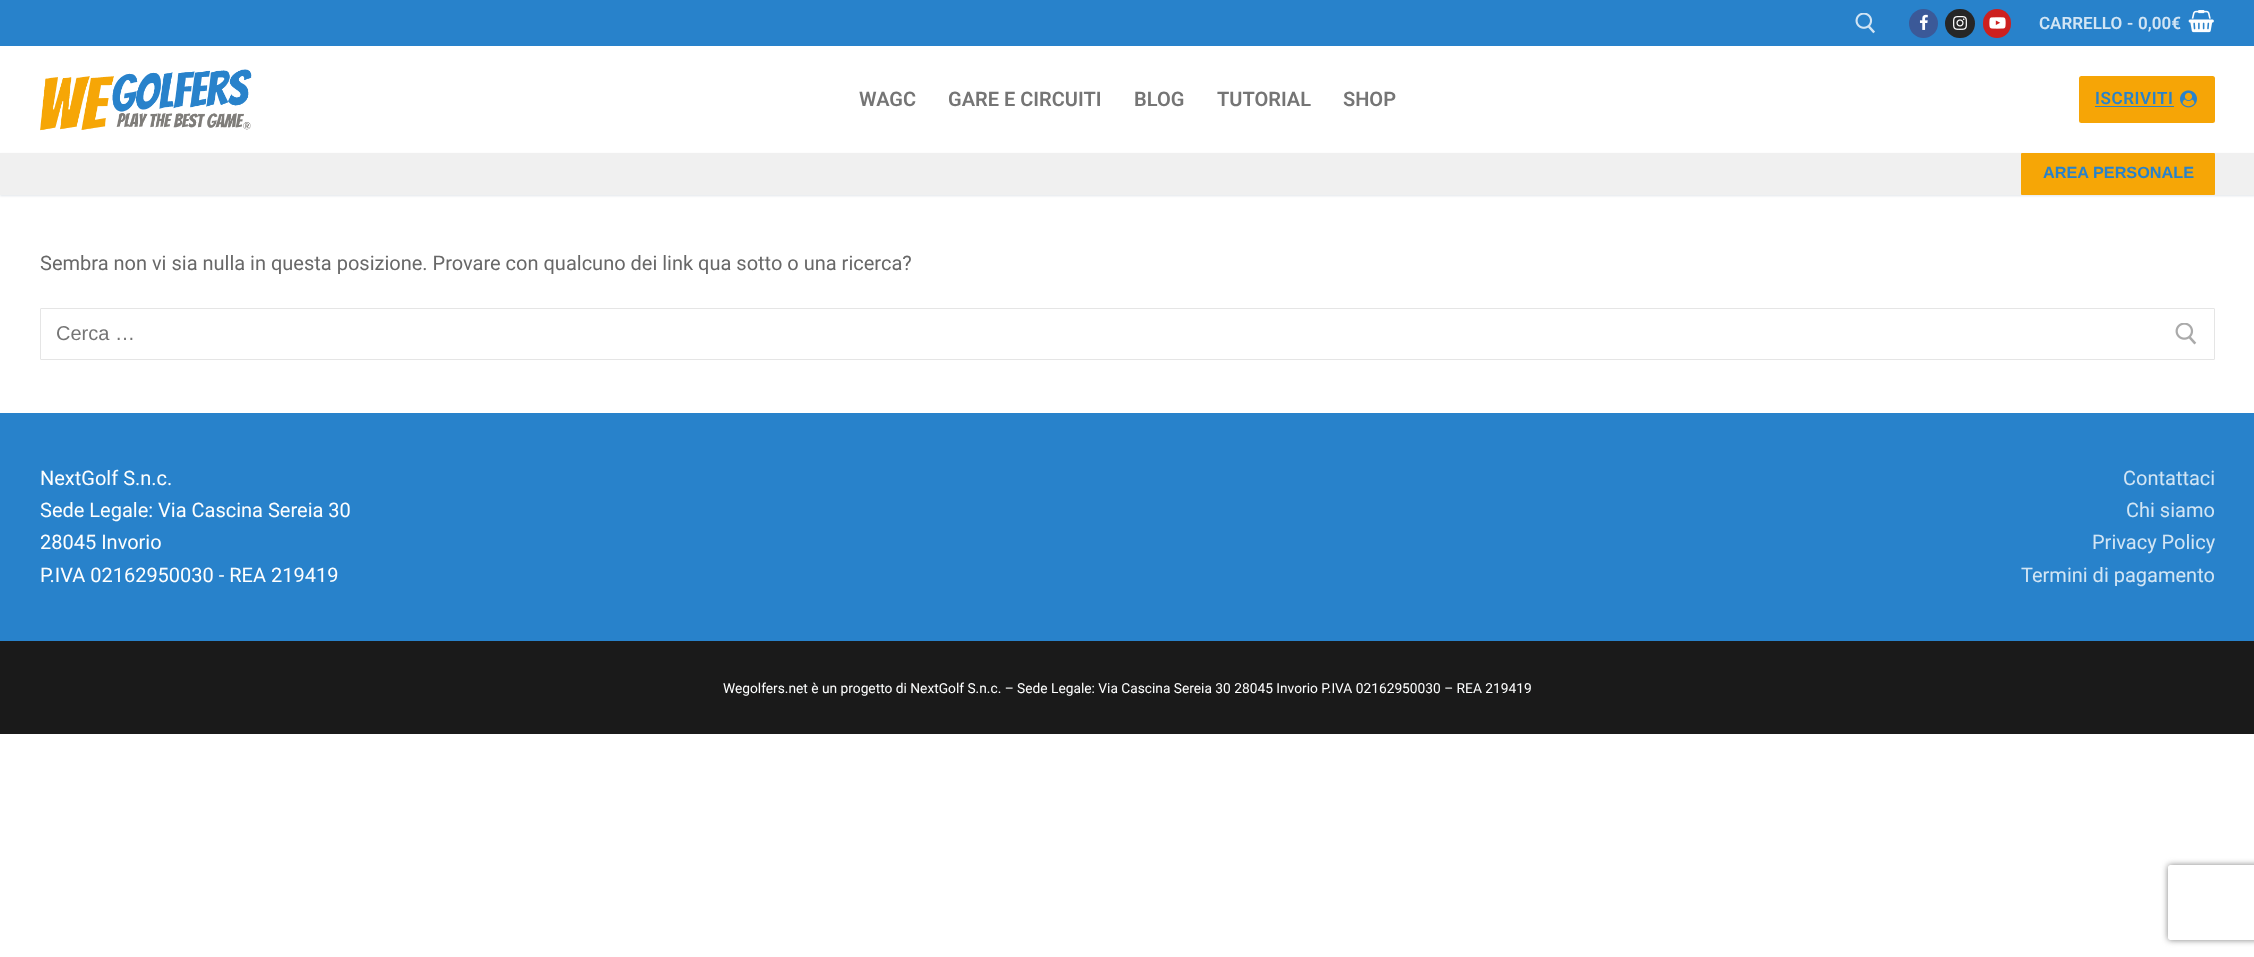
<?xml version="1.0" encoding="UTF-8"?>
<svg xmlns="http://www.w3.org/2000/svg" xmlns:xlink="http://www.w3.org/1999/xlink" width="2254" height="957">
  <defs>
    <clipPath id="clip1"><path d="M 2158 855 h 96 v 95 h -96 z m 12.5 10 h 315 c 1.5 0 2.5 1 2.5 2.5 v 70 c 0 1.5 -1 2.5 -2.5 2.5 h -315 c -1.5 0 -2.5 -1 -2.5 -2.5 v -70 c 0 -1.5 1 -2.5 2.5 -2.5 z" clip-rule="evenodd" /></clipPath>
  </defs>
  <rect width="100%" height="100%" fill="#ffffff" />
  <rect width="2254" height="46" fill="#2882cb" />
  <image x="1855" y="13" width="20" height="21" xlink:href="image1.png" />
  <circle cx="1923.5" cy="23.5" r="14.5" fill="#3b5998" />
  <image x="1919" y="14" width="9" height="16" xlink:href="image2.png" />
  <rect x="1945" y="9" width="30" height="29" rx="14.5" fill="#262626" />
  <image x="1953" y="16" width="14" height="14" xlink:href="image3.png" />
  <rect x="1983" y="9" width="28" height="29" rx="14" fill="#cd201f" />
  <image x="1989" y="17" width="17" height="12" xlink:href="image4.png" />
  <image x="2188" y="10" width="26" height="23" xlink:href="image5.png" />
  <image x="40" y="69" width="212" height="62" xlink:href="image6.png" />
  <rect x="2079" y="76" width="136" height="47" rx="2.5" fill="#f6a506" />
  <rect x="2095" y="106" width="79" height="1" fill="#2882cb" />
  <image x="2180" y="90" width="17" height="18" xlink:href="image7.png" />
  <rect y="154" width="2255" height="42" fill="#e1e5ea" filter="blur(1px)" />
  <rect y="153" width="2254" height="42" fill="#f0f0f0" />
  <rect x="2021" y="153" width="194" height="42" rx="1" fill="#f6a606" />
  <rect x="40.5" y="308.5" width="2174" height="51" rx="0.5" fill="none" stroke="#e5e5e5" />
  <image x="2175" y="323" width="22" height="22" xlink:href="image8.png" />
  <rect y="413" width="2254" height="228" fill="#2882cb" />
  <rect y="641" width="2254" height="93" fill="#1a1a1a" />
  <g clip-path="url(#clip1)">
    <rect x="2168" y="865" width="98" height="75" rx="2.5" fill="#808080" filter="blur(3px)" />
  </g>
  <text x="2039" y="29" style="font-family: Roboto; font-size: 17px; font-weight: 600; fill: #d2e5f4">CARRELLO</text>
  <text x="2127" y="29" style="font-family: Roboto; font-size: 17px; font-weight: 600; fill: #d2e5f4">-</text>
  <text x="2138" y="29" style="font-family: Roboto; font-size: 17px; font-weight: 600; fill: #d2e5f4">0,00€</text>
  <text x="859" y="106" style="font-family: Roboto; font-size: 20px; font-weight: 600; fill: #757575">WAGC</text>
  <text x="948" y="106" style="font-family: Roboto; font-size: 20px; font-weight: 600; fill: #757575">GARE E CIRCUITI</text>
  <text x="1134" y="106" style="font-family: Roboto; font-size: 20px; font-weight: 600; fill: #757575">BLOG</text>
  <text x="1217" y="106" style="font-family: Roboto; font-size: 20px; font-weight: 600; fill: #757575">TUTORIAL</text>
  <text x="1343" y="106" style="font-family: Roboto; font-size: 20px; font-weight: 600; fill: #757575">SHOP</text>
  <text x="2095" y="104" style="font-family: Roboto; font-size: 17px; font-weight: 600; letter-spacing: 0.6px; fill: #2882cb">ISCRIVITI</text>
  <text x="2043" y="178" style="font-family: Liberation Sans; font-size: 16.25px; font-weight: bold; fill: #2882cb">AREA PERSONALE</text>
  <text x="40" y="270" style="font-family: Roboto; font-size: 20px; fill: #686868">Sembra non vi sia nulla in questa posizione. Provare con qualcuno dei link qua sotto o una ricerca?</text>
  <text x="56" y="340" style="font-family: Liberation Sans; font-size: 20px; fill: #757575">Cerca …</text>
  <text x="40" y="485" style="font-family: Roboto; font-size: 20px; fill: #fdfefe">NextGolf S.n.c.</text>
  <text x="40" y="517" style="font-family: Roboto; font-size: 20px; fill: #fdfefe">Sede Legale: Via Cascina Sereia 30</text>
  <text x="40" y="549" style="font-family: Roboto; font-size: 20px; fill: #fdfefe">28045 Invorio</text>
  <text x="40" y="582" style="font-family: Roboto; font-size: 20px; fill: #fdfefe">P.IVA 02162950030 - REA 219419</text>
  <text x="2123" y="485" style="font-family: Roboto; font-size: 20px; fill: #d2e5f4">Contattaci</text>
  <text x="2126" y="517" style="font-family: Roboto; font-size: 20px; fill: #d2e5f4">Chi siamo</text>
  <text x="2092" y="549" style="font-family: Roboto; font-size: 20px; fill: #d2e5f4">Privacy Policy</text>
  <text x="2021" y="582" style="font-family: Roboto; font-size: 20px; fill: #d2e5f4">Termini di pagamento</text>
  <text x="723" y="693" style="font-family: Roboto; font-size: 13.75px; fill: #fdfefe">Wegolfers.net è un progetto di NextGolf S.n.c. – Sede Legale: Via Cascina Sereia 30 28045 Invorio P.IVA 02162950030 – REA 219419</text>
</svg>
